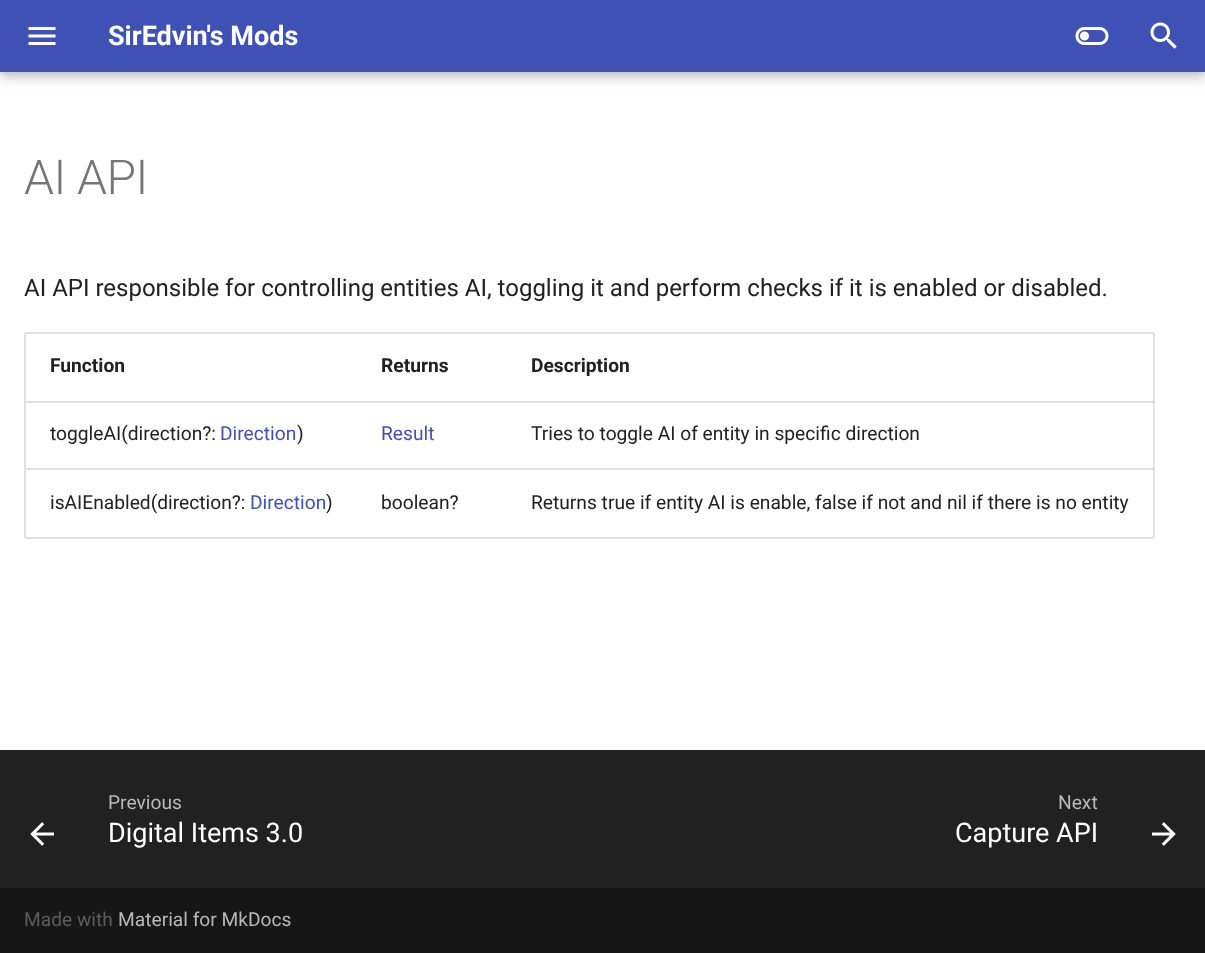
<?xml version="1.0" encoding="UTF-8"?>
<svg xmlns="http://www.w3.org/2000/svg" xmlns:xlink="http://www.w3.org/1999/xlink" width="1205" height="953">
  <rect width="100%" height="100%" fill="#ffffff" />
  <rect y="6" width="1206" height="72" fill="#000000" fill-opacity="0.2" filter="blur(6px)" />
  <rect width="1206" height="72" fill="#000000" fill-opacity="0.1" filter="blur(3px)" />
  <rect width="1205" height="72" fill="#4051b5" />
  <image x="28" y="27" width="28" height="18" xlink:href="image1.png" />
  <image x="1075" y="27" width="34" height="18" xlink:href="image2.png" />
  <image x="1150" y="22" width="27" height="27" xlink:href="image3.png" />
  <rect x="25" y="333" width="1129" height="205" rx="2" fill="none" stroke="#e0e0e0" stroke-width="2" />
  <rect x="26" y="401" width="481" height="2" fill="#e0e0e0" />
  <rect x="507" y="401" width="647" height="2" fill="#000000" fill-opacity="0.12" />
  <rect x="26" y="468" width="481" height="2" fill="#e0e0e0" />
  <rect x="507" y="468" width="647" height="2" fill="#000000" fill-opacity="0.12" />
  <rect y="750" width="1205" height="138" fill="#212121" />
  <image x="30" y="822" width="24" height="24" xlink:href="image4.png" />
  <image x="1152" y="822" width="24" height="24" xlink:href="image5.png" />
  <rect y="888" width="1205" height="65" fill="#161616" />
  <text x="108" y="45" style="font-family: Roboto; font-size: 27px; font-weight: bold; fill: #ffffff">SirEdvin's Mods</text>
  <text x="24" y="194" style="font-family: Roboto; font-size: 48px; font-weight: 300; letter-spacing: -0.5px; fill: #757575">AI API</text>
  <text x="24" y="296" style="font-family: Roboto; font-size: 24px; fill: #212121">AI API responsible for controlling entities AI, toggling it and perform checks if it is enabled or disabled.</text>
  <text x="50" y="372" style="font-family: Roboto; font-size: 19.2px; font-weight: bold; fill: #212121">Function</text>
  <text x="381" y="372" style="font-family: Roboto; font-size: 19.2px; font-weight: bold; fill: #212121">Returns</text>
  <text x="531" y="372" style="font-family: Roboto; font-size: 19.2px; font-weight: bold; fill: #212121">Description</text>
  <text x="50" y="440" style="font-family: Roboto; font-size: 19.2px; fill: #212121">toggleAI(direction?:</text>
  <text x="220" y="440" style="font-family: Roboto; font-size: 19.2px; fill: #4051b5">Direction</text>
  <text x="297" y="440" style="font-family: Roboto; font-size: 19.2px; fill: #212121">)</text>
  <text x="381" y="440" style="font-family: Roboto; font-size: 19.2px; fill: #4051b5">Result</text>
  <text x="531" y="440" style="font-family: Roboto; font-size: 19.2px; fill: #212121">Tries to toggle AI of entity in specific direction</text>
  <text x="50" y="509" style="font-family: Roboto; font-size: 19.2px; fill: #212121">isAIEnabled(direction?:</text>
  <text x="250" y="509" style="font-family: Roboto; font-size: 19.2px; fill: #4051b5">Direction</text>
  <text x="326" y="509" style="font-family: Roboto; font-size: 19.2px; fill: #212121">)</text>
  <text x="381" y="509" style="font-family: Roboto; font-size: 19.2px; fill: #212121">boolean?</text>
  <text x="531" y="509" style="font-family: Roboto; font-size: 19.2px; fill: #212121">Returns true if entity AI is enable, false if not and nil if there is no entity</text>
  <text x="108" y="809" style="font-family: Roboto; font-size: 19.2px; fill: #b9b9b9">Previous</text>
  <text x="108" y="842" style="font-family: Roboto; font-size: 27px; fill: #ffffff">Digital Items 3.0</text>
  <text x="1058" y="809" style="font-family: Roboto; font-size: 19.2px; fill: #b9b9b9">Next</text>
  <text x="955" y="842" style="font-family: Roboto; font-size: 27px; fill: #ffffff">Capture API</text>
  <text x="24" y="926" style="font-family: Roboto; font-size: 19.2px; fill: #5c5c5c">Made with</text>
  <text x="118" y="926" style="font-family: Roboto; font-size: 19.2px; fill: #b9b9b9">Material for MkDocs</text>
</svg>
